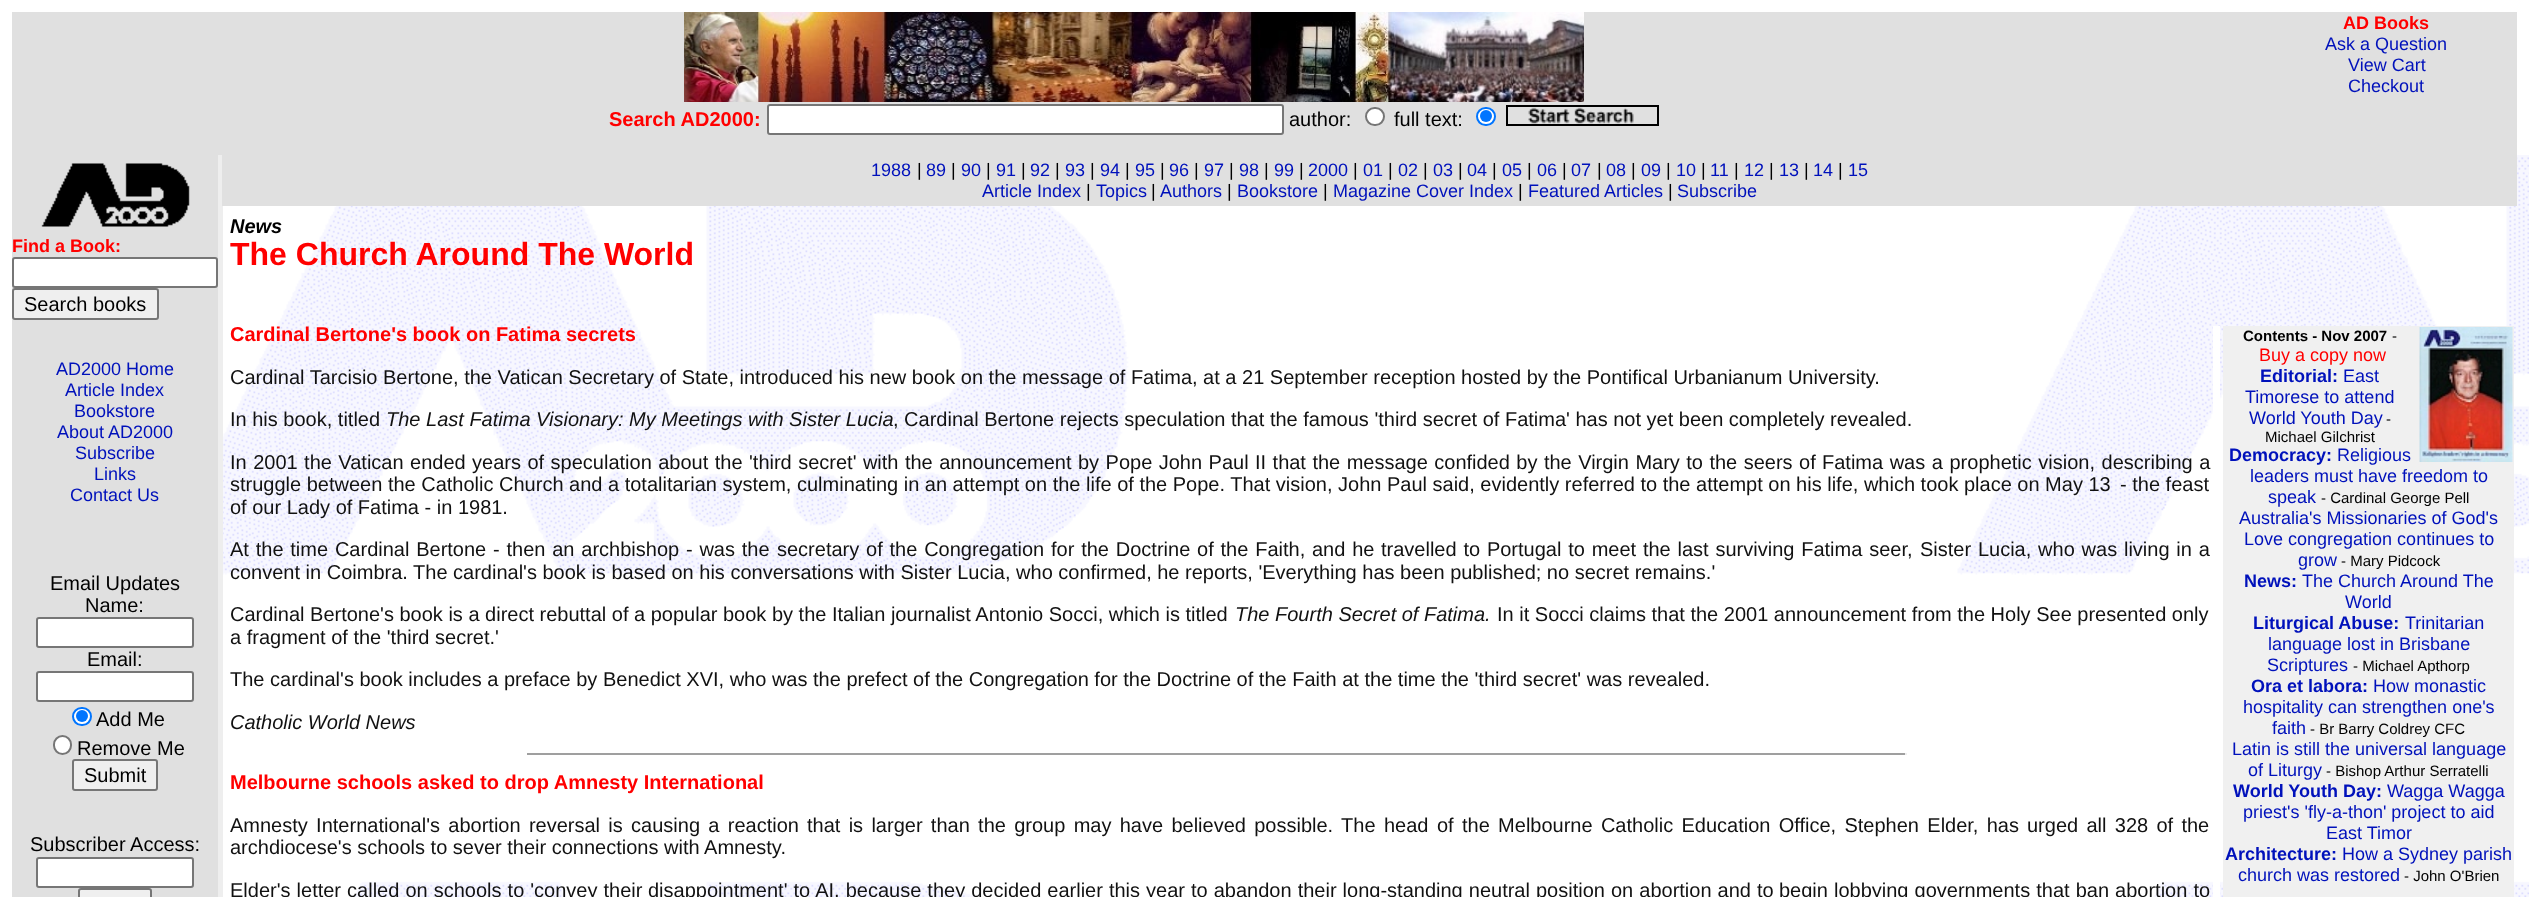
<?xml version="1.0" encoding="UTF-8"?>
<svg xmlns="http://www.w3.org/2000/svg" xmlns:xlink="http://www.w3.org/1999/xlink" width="2529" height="897">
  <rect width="100%" height="100%" fill="#ffffff" />
  <image x="223" y="155" width="2306" height="742" xlink:href="image1.png" />
  <rect x="12" y="12" width="2505" height="143" fill="#e0e0e0" />
  <image x="684" y="12" width="900" height="90" xlink:href="image2.png" />
  <rect x="768" y="105" width="515" height="29" rx="2" fill="#ffffff" stroke="#767676" stroke-width="2" />
  <rect x="1366" y="108" width="18" height="17" rx="8.5" fill="#ffffff" stroke="#767676" stroke-width="2" />
  <rect x="1477" y="108" width="18" height="17" rx="8.5" fill="#ffffff" stroke="#0075ff" stroke-width="2" />
  <circle cx="1486" cy="116" r="6" fill="#0075ff" />
  <rect x="1507" y="106" width="151" height="19" fill="none" stroke="#000000" stroke-width="2" />
  <image x="1528" y="107" width="106" height="17" xlink:href="image3.png" />
  <rect x="12" y="155" width="206" height="742" fill="#e0e0e0" />
  <image x="41" y="163" width="149" height="64" xlink:href="image4.png" />
  <rect x="13" y="258" width="204" height="29" rx="2" fill="#ffffff" stroke="#767676" stroke-width="2" />
  <rect x="13" y="289" width="145" height="30" rx="2" fill="#efefef" stroke="#767676" stroke-width="2" />
  <rect x="37" y="618" width="156" height="29" rx="2" fill="#ffffff" stroke="#767676" stroke-width="2" />
  <rect x="37" y="672" width="156" height="29" rx="2" fill="#ffffff" stroke="#767676" stroke-width="2" />
  <rect x="73" y="708" width="18" height="17" rx="8.5" fill="#ffffff" stroke="#0075ff" stroke-width="2" />
  <circle cx="82" cy="716" r="6" fill="#0075ff" />
  <rect x="54" y="736" width="17" height="18" rx="8.5" fill="#ffffff" stroke="#767676" stroke-width="2" />
  <rect x="73" y="760" width="84" height="30" rx="2" fill="#efefef" stroke="#767676" stroke-width="2" />
  <rect x="37" y="858" width="156" height="29" rx="2" fill="#ffffff" stroke="#767676" stroke-width="2" />
  <rect x="79" y="889" width="72" height="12" rx="2" fill="#efefef" stroke="#767676" stroke-width="2" />
  <rect x="218" y="155" width="5" height="742" fill="#eeeeee" />
  <rect x="222" y="155" width="2295" height="51" fill="#e0e0e0" />
  <rect x="2213" y="326" width="7" height="571" fill="#ffffff" />
  <rect x="2223" y="326" width="291" height="571" fill="#f0f0f0" />
  <image x="2419" y="327" width="94" height="135" xlink:href="image5.png" />
  <rect x="527" y="753" width="1380" height="2" fill="#9f9f9f" />
  <rect x="1905" y="753" width="2" height="2" fill="#eeeeee" />
  <text x="2343" y="29" style="font-family: Liberation Sans; font-size: 18px; font-weight: bold; fill: #ff0000">AD Books</text>
  <text x="2325" y="50" style="font-family: Liberation Sans; font-size: 18px; fill: #0011bb">Ask a Question</text>
  <text x="2348" y="71" style="font-family: Liberation Sans; font-size: 18px; fill: #0011bb">View Cart</text>
  <text x="2348" y="92" style="font-family: Liberation Sans; font-size: 18px; fill: #0011bb">Checkout</text>
  <text x="609" y="126" style="font-family: Liberation Sans; font-size: 20px; font-weight: bold; fill: #ff0000">Search AD2000:</text>
  <text x="1289" y="126" style="font-family: Liberation Sans; font-size: 20px; fill: #000000">author:</text>
  <text x="1394" y="126" style="font-family: Liberation Sans; font-size: 20px; fill: #000000">full text:</text>
  <text x="12" y="252" style="font-family: Liberation Sans; font-size: 18px; font-weight: bold; fill: #ff0000">Find a Book:</text>
  <text x="24" y="311" style="font-family: Liberation Sans; font-size: 20px; fill: #000000">Search books</text>
  <text x="56" y="375" style="font-family: Liberation Sans; font-size: 18px; fill: #0011bb">AD2000 Home</text>
  <text x="65" y="396" style="font-family: Liberation Sans; font-size: 18px; fill: #0011bb">Article Index</text>
  <text x="74" y="417" style="font-family: Liberation Sans; font-size: 18px; fill: #0011bb">Bookstore</text>
  <text x="57" y="438" style="font-family: Liberation Sans; font-size: 18px; fill: #0011bb">About AD2000</text>
  <text x="75" y="459" style="font-family: Liberation Sans; font-size: 18px; fill: #0011bb">Subscribe</text>
  <text x="94" y="480" style="font-family: Liberation Sans; font-size: 18px; fill: #0011bb">Links</text>
  <text x="70" y="501" style="font-family: Liberation Sans; font-size: 18px; fill: #0011bb">Contact Us</text>
  <text x="50" y="590" style="font-family: Liberation Sans; font-size: 20px; fill: #000000">Email Updates</text>
  <text x="85" y="612" style="font-family: Liberation Sans; font-size: 20px; fill: #000000">Name:</text>
  <text x="87" y="666" style="font-family: Liberation Sans; font-size: 20px; fill: #000000">Email:</text>
  <text x="96" y="726" style="font-family: Liberation Sans; font-size: 20px; fill: #000000">Add Me</text>
  <text x="77" y="755" style="font-family: Liberation Sans; font-size: 20px; fill: #000000">Remove Me</text>
  <text x="84" y="782" style="font-family: Liberation Sans; font-size: 20px; fill: #000000">Submit</text>
  <text x="30" y="851" style="font-family: Liberation Sans; font-size: 20px; fill: #000000">Subscriber Access:</text>
  <text x="871" y="176" style="font-family: Liberation Sans; font-size: 18px; fill: #0011bb">1988</text>
  <text x="917" y="176" style="font-family: Liberation Sans; font-size: 18px; fill: #000000">|</text>
  <text x="926" y="176" style="font-family: Liberation Sans; font-size: 18px; fill: #0011bb">89</text>
  <text x="951" y="176" style="font-family: Liberation Sans; font-size: 18px; fill: #000000">|</text>
  <text x="961" y="176" style="font-family: Liberation Sans; font-size: 18px; fill: #0011bb">90</text>
  <text x="986" y="176" style="font-family: Liberation Sans; font-size: 18px; fill: #000000">|</text>
  <text x="996" y="176" style="font-family: Liberation Sans; font-size: 18px; fill: #0011bb">91</text>
  <text x="1021" y="176" style="font-family: Liberation Sans; font-size: 18px; fill: #000000">|</text>
  <text x="1030" y="176" style="font-family: Liberation Sans; font-size: 18px; fill: #0011bb">92</text>
  <text x="1055" y="176" style="font-family: Liberation Sans; font-size: 18px; fill: #000000">|</text>
  <text x="1065" y="176" style="font-family: Liberation Sans; font-size: 18px; fill: #0011bb">93</text>
  <text x="1090" y="176" style="font-family: Liberation Sans; font-size: 18px; fill: #000000">|</text>
  <text x="1100" y="176" style="font-family: Liberation Sans; font-size: 18px; fill: #0011bb">94</text>
  <text x="1125" y="176" style="font-family: Liberation Sans; font-size: 18px; fill: #000000">|</text>
  <text x="1135" y="176" style="font-family: Liberation Sans; font-size: 18px; fill: #0011bb">95</text>
  <text x="1160" y="176" style="font-family: Liberation Sans; font-size: 18px; fill: #000000">|</text>
  <text x="1169" y="176" style="font-family: Liberation Sans; font-size: 18px; fill: #0011bb">96</text>
  <text x="1194" y="176" style="font-family: Liberation Sans; font-size: 18px; fill: #000000">|</text>
  <text x="1204" y="176" style="font-family: Liberation Sans; font-size: 18px; fill: #0011bb">97</text>
  <text x="1229" y="176" style="font-family: Liberation Sans; font-size: 18px; fill: #000000">|</text>
  <text x="1239" y="176" style="font-family: Liberation Sans; font-size: 18px; fill: #0011bb">98</text>
  <text x="1264" y="176" style="font-family: Liberation Sans; font-size: 18px; fill: #000000">|</text>
  <text x="1274" y="176" style="font-family: Liberation Sans; font-size: 18px; fill: #0011bb">99</text>
  <text x="1299" y="176" style="font-family: Liberation Sans; font-size: 18px; fill: #000000">|</text>
  <text x="1308" y="176" style="font-family: Liberation Sans; font-size: 18px; fill: #0011bb">2000</text>
  <text x="1353" y="176" style="font-family: Liberation Sans; font-size: 18px; fill: #000000">|</text>
  <text x="1363" y="176" style="font-family: Liberation Sans; font-size: 18px; fill: #0011bb">01</text>
  <text x="1388" y="176" style="font-family: Liberation Sans; font-size: 18px; fill: #000000">|</text>
  <text x="1398" y="176" style="font-family: Liberation Sans; font-size: 18px; fill: #0011bb">02</text>
  <text x="1423" y="176" style="font-family: Liberation Sans; font-size: 18px; fill: #000000">|</text>
  <text x="1433" y="176" style="font-family: Liberation Sans; font-size: 18px; fill: #0011bb">03</text>
  <text x="1458" y="176" style="font-family: Liberation Sans; font-size: 18px; fill: #000000">|</text>
  <text x="1467" y="176" style="font-family: Liberation Sans; font-size: 18px; fill: #0011bb">04</text>
  <text x="1492" y="176" style="font-family: Liberation Sans; font-size: 18px; fill: #000000">|</text>
  <text x="1502" y="176" style="font-family: Liberation Sans; font-size: 18px; fill: #0011bb">05</text>
  <text x="1527" y="176" style="font-family: Liberation Sans; font-size: 18px; fill: #000000">|</text>
  <text x="1537" y="176" style="font-family: Liberation Sans; font-size: 18px; fill: #0011bb">06</text>
  <text x="1562" y="176" style="font-family: Liberation Sans; font-size: 18px; fill: #000000">|</text>
  <text x="1571" y="176" style="font-family: Liberation Sans; font-size: 18px; fill: #0011bb">07</text>
  <text x="1597" y="176" style="font-family: Liberation Sans; font-size: 18px; fill: #000000">|</text>
  <text x="1606" y="176" style="font-family: Liberation Sans; font-size: 18px; fill: #0011bb">08</text>
  <text x="1631" y="176" style="font-family: Liberation Sans; font-size: 18px; fill: #000000">|</text>
  <text x="1641" y="176" style="font-family: Liberation Sans; font-size: 18px; fill: #0011bb">09</text>
  <text x="1666" y="176" style="font-family: Liberation Sans; font-size: 18px; fill: #000000">|</text>
  <text x="1676" y="176" style="font-family: Liberation Sans; font-size: 18px; fill: #0011bb">10</text>
  <text x="1701" y="176" style="font-family: Liberation Sans; font-size: 18px; fill: #000000">|</text>
  <text x="1710" y="176" style="font-family: Liberation Sans; font-size: 18px; fill: #0011bb">11</text>
  <text x="1734" y="176" style="font-family: Liberation Sans; font-size: 18px; fill: #000000">|</text>
  <text x="1744" y="176" style="font-family: Liberation Sans; font-size: 18px; fill: #0011bb">12</text>
  <text x="1769" y="176" style="font-family: Liberation Sans; font-size: 18px; fill: #000000">|</text>
  <text x="1779" y="176" style="font-family: Liberation Sans; font-size: 18px; fill: #0011bb">13</text>
  <text x="1804" y="176" style="font-family: Liberation Sans; font-size: 18px; fill: #000000">|</text>
  <text x="1813" y="176" style="font-family: Liberation Sans; font-size: 18px; fill: #0011bb">14</text>
  <text x="1838" y="176" style="font-family: Liberation Sans; font-size: 18px; fill: #000000">|</text>
  <text x="1848" y="176" style="font-family: Liberation Sans; font-size: 18px; fill: #0011bb">15</text>
  <text x="982" y="197" style="font-family: Liberation Sans; font-size: 18px; fill: #0011bb">Article Index</text>
  <text x="1086" y="197" style="font-family: Liberation Sans; font-size: 18px; fill: #000000">|</text>
  <text x="1096" y="197" style="font-family: Liberation Sans; font-size: 18px; fill: #0011bb">Topics</text>
  <text x="1151" y="197" style="font-family: Liberation Sans; font-size: 18px; fill: #000000">|</text>
  <text x="1160" y="197" style="font-family: Liberation Sans; font-size: 18px; fill: #0011bb">Authors</text>
  <text x="1227" y="197" style="font-family: Liberation Sans; font-size: 18px; fill: #000000">|</text>
  <text x="1237" y="197" style="font-family: Liberation Sans; font-size: 18px; fill: #0011bb">Bookstore</text>
  <text x="1323" y="197" style="font-family: Liberation Sans; font-size: 18px; fill: #000000">|</text>
  <text x="1333" y="197" style="font-family: Liberation Sans; font-size: 18px; fill: #0011bb">Magazine Cover Index</text>
  <text x="1518" y="197" style="font-family: Liberation Sans; font-size: 18px; fill: #000000">|</text>
  <text x="1528" y="197" style="font-family: Liberation Sans; font-size: 18px; fill: #0011bb">Featured Articles</text>
  <text x="1668" y="197" style="font-family: Liberation Sans; font-size: 18px; fill: #000000">|</text>
  <text x="1677" y="197" style="font-family: Liberation Sans; font-size: 18px; fill: #0011bb">Subscribe</text>
  <text x="230" y="233" style="font-family: Liberation Sans; font-size: 20px; font-weight: bold; font-style: italic; fill: #000000">News</text>
  <text x="230" y="265" style="font-family: Liberation Sans; font-size: 32px; font-weight: bold; fill: #ff0000">The Church Around The World</text>
  <text x="230" y="341" style="font-family: Liberation Sans; font-size: 20px; font-weight: bold; fill: #ff0000">Cardinal Bertone's book on Fatima secrets</text>
  <text x="2243" y="341" style="font-family: Liberation Sans; font-size: 15px; font-weight: bold; fill: #000000">Contents - Nov 2007</text>
  <text x="2392" y="341" style="font-family: Liberation Sans; font-size: 15px; fill: #000000">-</text>
  <text x="2259" y="361" style="font-family: Liberation Sans; font-size: 18px; fill: #ff0000">Buy a copy now</text>
  <text x="2260" y="382" style="font-family: Liberation Sans; font-size: 18px; font-weight: bold; fill: #0011bb">Editorial:</text>
  <text x="2343" y="382" style="font-family: Liberation Sans; font-size: 18px; fill: #0011bb">East</text>
  <text x="2245" y="403" style="font-family: Liberation Sans; font-size: 18px; fill: #0011bb">Timorese to attend</text>
  <text x="2249" y="424" style="font-family: Liberation Sans; font-size: 18px; fill: #0011bb">World Youth Day</text>
  <text x="2386" y="424" style="font-family: Liberation Sans; font-size: 15px; fill: #000000">-</text>
  <text x="2265" y="442" style="font-family: Liberation Sans; font-size: 15px; fill: #000000">Michael Gilchrist</text>
  <text x="2229" y="461" style="font-family: Liberation Sans; font-size: 18px; font-weight: bold; fill: #0011bb">Democracy:</text>
  <text x="2337" y="461" style="font-family: Liberation Sans; font-size: 18px; fill: #0011bb">Religious</text>
  <text x="2250" y="482" style="font-family: Liberation Sans; font-size: 18px; fill: #0011bb">leaders must have freedom to</text>
  <text x="2268" y="503" style="font-family: Liberation Sans; font-size: 18px; fill: #0011bb">speak</text>
  <text x="2321" y="503" style="font-family: Liberation Sans; font-size: 15px; fill: #000000">- Cardinal George Pell</text>
  <text x="2239" y="524" style="font-family: Liberation Sans; font-size: 18px; fill: #0011bb">Australia's Missionaries of God's</text>
  <text x="2244" y="545" style="font-family: Liberation Sans; font-size: 18px; fill: #0011bb">Love congregation continues to</text>
  <text x="2298" y="566" style="font-family: Liberation Sans; font-size: 18px; fill: #0011bb">grow</text>
  <text x="2341" y="566" style="font-family: Liberation Sans; font-size: 15px; fill: #000000">- Mary Pidcock</text>
  <text x="2244" y="587" style="font-family: Liberation Sans; font-size: 18px; font-weight: bold; fill: #0011bb">News:</text>
  <text x="2302" y="587" style="font-family: Liberation Sans; font-size: 18px; fill: #0011bb">The Church Around The</text>
  <text x="2345" y="608" style="font-family: Liberation Sans; font-size: 18px; fill: #0011bb">World</text>
  <text x="2253" y="629" style="font-family: Liberation Sans; font-size: 18px; font-weight: bold; fill: #0011bb">Liturgical Abuse:</text>
  <text x="2405" y="629" style="font-family: Liberation Sans; font-size: 18px; fill: #0011bb">Trinitarian</text>
  <text x="2268" y="650" style="font-family: Liberation Sans; font-size: 18px; fill: #0011bb">language lost in Brisbane</text>
  <text x="2267" y="671" style="font-family: Liberation Sans; font-size: 18px; fill: #0011bb">Scriptures</text>
  <text x="2353" y="671" style="font-family: Liberation Sans; font-size: 15px; fill: #000000">- Michael Apthorp</text>
  <text x="2251" y="692" style="font-family: Liberation Sans; font-size: 18px; font-weight: bold; fill: #0011bb">Ora et labora:</text>
  <text x="2373" y="692" style="font-family: Liberation Sans; font-size: 18px; fill: #0011bb">How monastic</text>
  <text x="2243" y="713" style="font-family: Liberation Sans; font-size: 18px; fill: #0011bb">hospitality can strengthen one's</text>
  <text x="2272" y="734" style="font-family: Liberation Sans; font-size: 18px; fill: #0011bb">faith</text>
  <text x="2310" y="734" style="font-family: Liberation Sans; font-size: 15px; fill: #000000">- Br Barry Coldrey CFC</text>
  <text x="2232" y="755" style="font-family: Liberation Sans; font-size: 18px; fill: #0011bb">Latin is still the universal language</text>
  <text x="2248" y="776" style="font-family: Liberation Sans; font-size: 18px; fill: #0011bb">of Liturgy</text>
  <text x="2326" y="776" style="font-family: Liberation Sans; font-size: 15px; fill: #000000">- Bishop Arthur Serratelli</text>
  <text x="2233" y="797" style="font-family: Liberation Sans; font-size: 18px; font-weight: bold; fill: #0011bb">World Youth Day:</text>
  <text x="2387" y="797" style="font-family: Liberation Sans; font-size: 18px; fill: #0011bb">Wagga Wagga</text>
  <text x="2243" y="818" style="font-family: Liberation Sans; font-size: 18px; fill: #0011bb">priest's 'fly-a-thon' project to aid</text>
  <text x="2326" y="839" style="font-family: Liberation Sans; font-size: 18px; fill: #0011bb">East Timor</text>
  <text x="2225" y="860" style="font-family: Liberation Sans; font-size: 18px; font-weight: bold; fill: #0011bb">Architecture:</text>
  <text x="2342" y="860" style="font-family: Liberation Sans; font-size: 18px; fill: #0011bb">How a Sydney parish</text>
  <text x="2238" y="881" style="font-family: Liberation Sans; font-size: 18px; fill: #0011bb">church was restored</text>
  <text x="2404" y="881" style="font-family: Liberation Sans; font-size: 15px; fill: #000000">- John O'Brien</text>
  <text x="230" y="384" style="font-family: Liberation Sans; font-size: 20px; fill: #111111">Cardinal Tarcisio Bertone, the Vatican Secretary of State, introduced his new book on the message of Fatima, at a 21 September reception hosted by the Pontifical Urbanianum University.</text>
  <text x="230" y="426" style="font-family: Liberation Sans; font-size: 20px; fill: #111111">In his book, titled</text>
  <text x="386" y="426" style="font-family: Liberation Sans; font-size: 20px; font-style: italic; fill: #111111">The Last Fatima Visionary: My Meetings with Sister Lucia</text>
  <text x="893" y="426" style="font-family: Liberation Sans; font-size: 20px; fill: #111111">, Cardinal Bertone rejects speculation that the famous 'third secret of Fatima' has not yet been completely revealed.</text>
  <text x="230" y="469" word-spacing="0.9" style="font-family: Liberation Sans; font-size: 20px; fill: #111111">In 2001 the Vatican ended years of speculation about the</text>
  <text x="749" y="469" word-spacing="0.9" style="font-family: Liberation Sans; font-size: 20px; fill: #111111">'third secret' with the announcement by Pope John Paul</text>
  <text x="1255" y="469" word-spacing="0.9" style="font-family: Liberation Sans; font-size: 20px; fill: #111111">II that the message confided by the Virgin Mary to the seers of</text>
  <text x="1822" y="469" word-spacing="1" style="font-family: Liberation Sans; font-size: 20px; fill: #111111">Fatima was a prophetic vision, describing a</text>
  <text x="230" y="491" style="font-family: Liberation Sans; font-size: 20px; fill: #111111">struggle between the Catholic Church and a totalitarian system, culminating in an attempt on the life of the Pope. That vision, John Paul said, evidently referred to the attempt on his life, which took place on May 13</text>
  <text x="2120" y="491" style="font-family: Liberation Sans; font-size: 20px; fill: #111111">- the feast</text>
  <text x="230" y="514" style="font-family: Liberation Sans; font-size: 20px; fill: #111111">of our Lady of Fatima - in 1981.</text>
  <text x="230" y="556" word-spacing="1.25" style="font-family: Liberation Sans; font-size: 20px; fill: #111111">At the time Cardinal Bertone - then an archbishop - was the</text>
  <text x="777" y="556" word-spacing="1.25" style="font-family: Liberation Sans; font-size: 20px; fill: #111111">secretary of the Congregation for the Doctrine of the Faith, and he</text>
  <text x="1381" y="556" word-spacing="1.25" style="font-family: Liberation Sans; font-size: 20px; fill: #111111">travelled to Portugal to meet the last surviving Fatima seer,</text>
  <text x="1920" y="556" word-spacing="1.25" style="font-family: Liberation Sans; font-size: 20px; fill: #111111">Sister Lucia, who was living in a</text>
  <text x="230" y="579" style="font-family: Liberation Sans; font-size: 20px; fill: #111111">convent in Coimbra. The cardinal's book is based on his conversations with Sister Lucia, who confirmed, he reports, 'Everything has been published; no secret remains.'</text>
  <text x="230" y="621" style="font-family: Liberation Sans; font-size: 20px; fill: #111111">Cardinal Bertone's book is a direct rebuttal of a popular book by the Italian journalist Antonio Socci, which is titled</text>
  <text x="1235" y="621" style="font-family: Liberation Sans; font-size: 20px; font-style: italic; fill: #111111">The Fourth Secret of Fatima.</text>
  <text x="1497" y="621" style="font-family: Liberation Sans; font-size: 20px; fill: #111111">In it Socci claims that the 2001 announcement from the Holy See presented only</text>
  <text x="230" y="644" style="font-family: Liberation Sans; font-size: 20px; fill: #111111">a fragment of the 'third secret.'</text>
  <text x="230" y="686" style="font-family: Liberation Sans; font-size: 20px; fill: #111111">The cardinal's book includes a preface by Benedict XVI, who was the prefect of the Congregation for the Doctrine of the Faith at the time the 'third secret' was revealed.</text>
  <text x="230" y="729" style="font-family: Liberation Sans; font-size: 20px; font-style: italic; fill: #111111">Catholic World News</text>
  <text x="230" y="789" style="font-family: Liberation Sans; font-size: 20px; font-weight: bold; fill: #ff0000">Melbourne schools asked to drop Amnesty International</text>
  <text x="230" y="832" word-spacing="2.75" style="font-family: Liberation Sans; font-size: 20px; fill: #111111">Amnesty International's abortion reversal is causing a reaction</text>
  <text x="807" y="832" word-spacing="2.75" style="font-family: Liberation Sans; font-size: 20px; fill: #111111">that is larger than the group may have believed possible. The head</text>
  <text x="1437" y="832" word-spacing="2.75" style="font-family: Liberation Sans; font-size: 20px; fill: #111111">of the Melbourne Catholic Education Office, Stephen Elder, has</text>
  <text x="2027" y="832" word-spacing="2.75" style="font-family: Liberation Sans; font-size: 20px; fill: #111111">urged all 328 of the</text>
  <text x="230" y="854" style="font-family: Liberation Sans; font-size: 20px; fill: #111111">archdiocese's schools to sever their connections with Amnesty.</text>
  <text x="230" y="897" word-spacing="0.5" style="font-family: Liberation Sans; font-size: 20px; fill: #111111">Elder's letter called on schools to 'convey their</text>
  <text x="648" y="897" word-spacing="0.5" style="font-family: Liberation Sans; font-size: 20px; fill: #111111">disappointment' to AI, because they decided earlier this year</text>
  <text x="1191" y="897" word-spacing="0.5" style="font-family: Liberation Sans; font-size: 20px; fill: #111111">to abandon their long-standing neutral position on abortion and to</text>
  <text x="1779" y="897" word-spacing="0.5" style="font-family: Liberation Sans; font-size: 20px; fill: #111111">begin lobbying governments that ban abortion to</text>
</svg>
